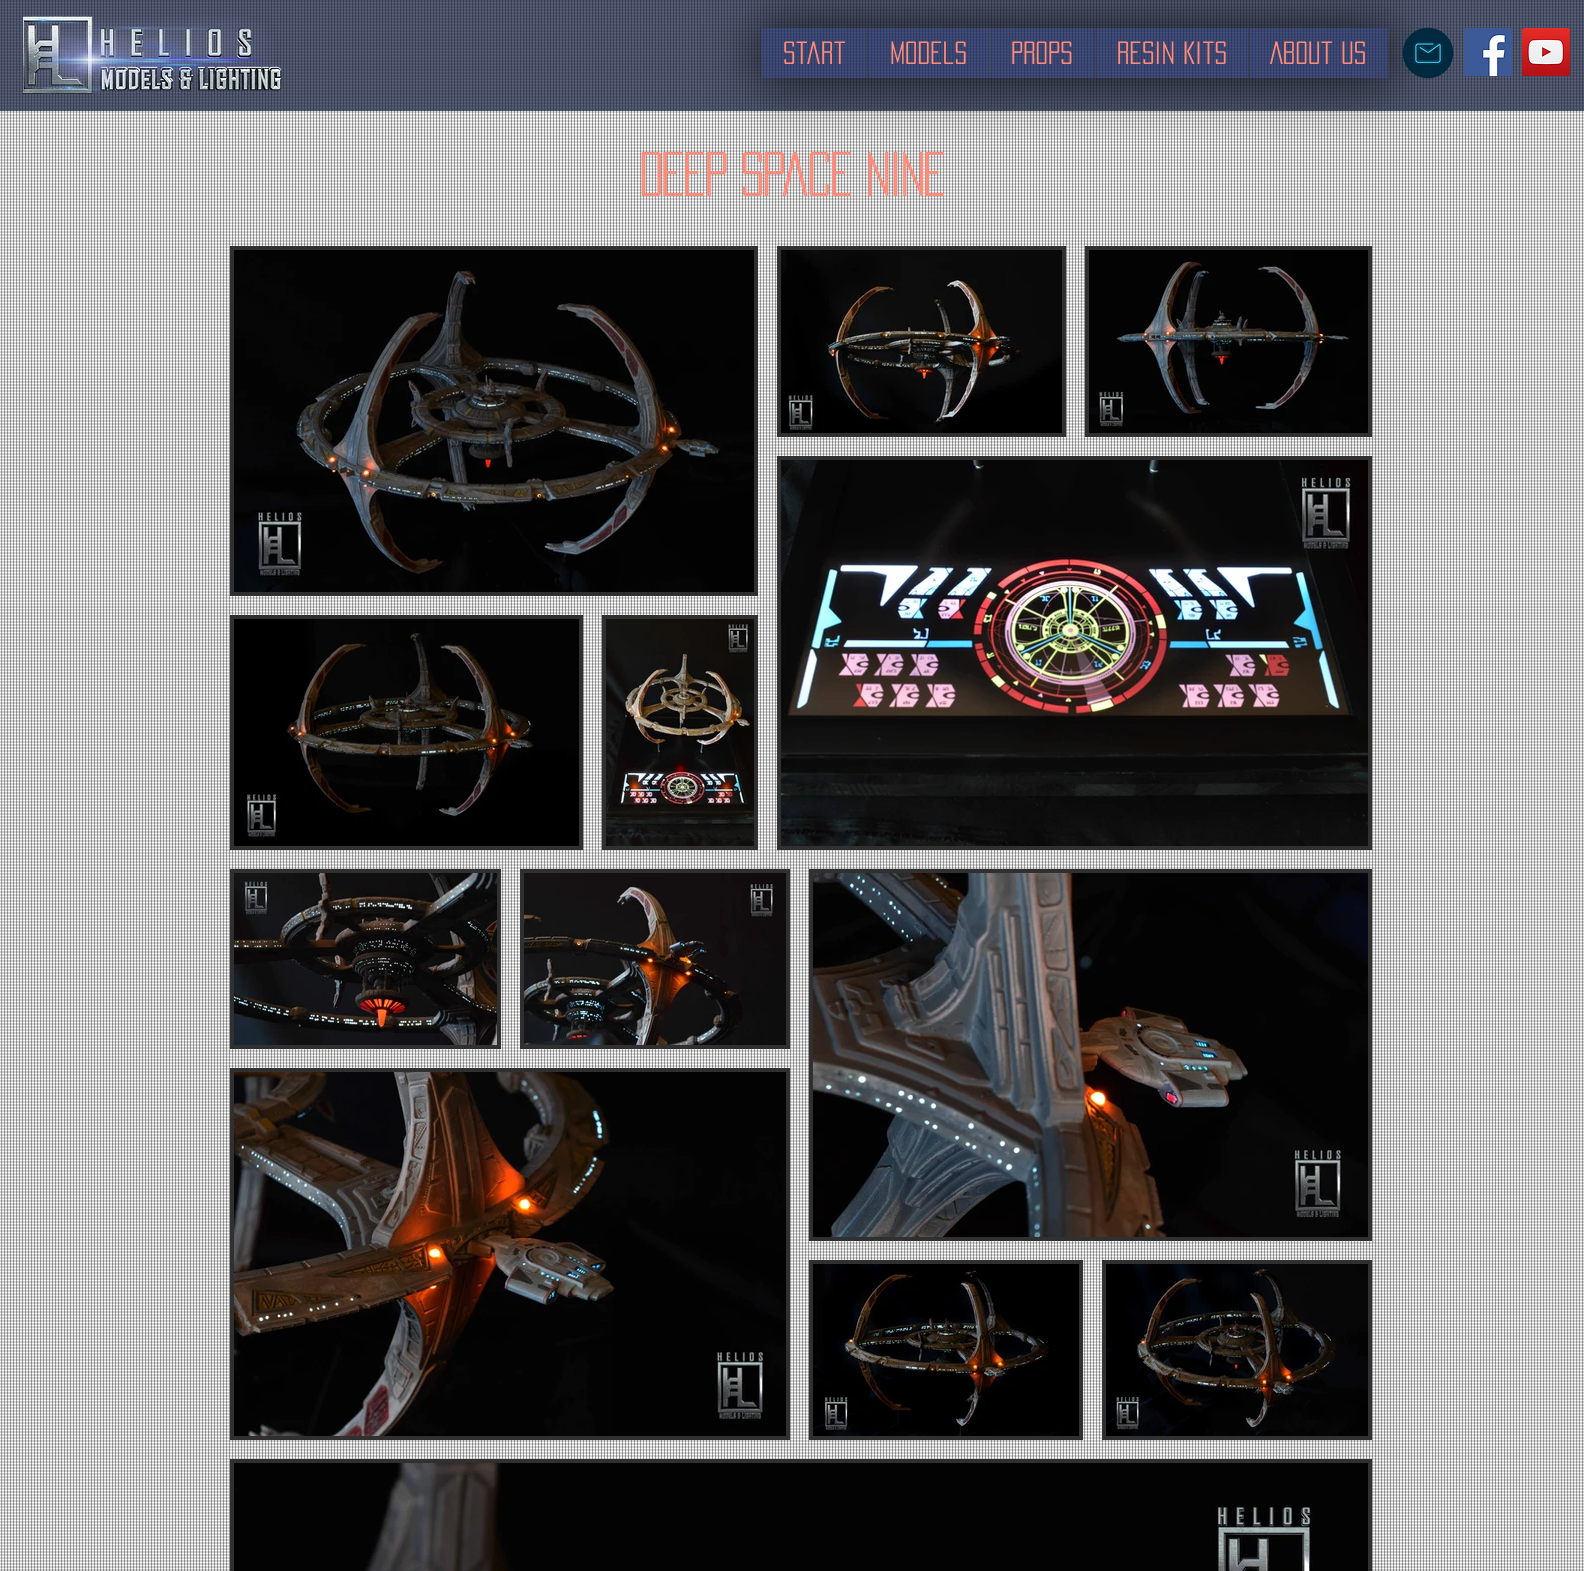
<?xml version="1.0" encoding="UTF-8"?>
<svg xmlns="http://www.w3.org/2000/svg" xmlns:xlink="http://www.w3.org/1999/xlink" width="1584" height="1571">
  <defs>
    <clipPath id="clip1"><path d="M 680 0 h 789 v 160 h -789 z m 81 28 h 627 v 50 h -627 z" clip-rule="evenodd" /></clipPath>
  </defs>
  <rect width="100%" height="100%" fill="#ffffff" />
  <image x="0" y="0" width="1584" height="1571" xlink:href="image1.png" />
  <rect width="1584" height="111" fill="#131c3c" fill-opacity="0.7" />
  <image x="23" y="16" width="259" height="78" xlink:href="image2.png" />
  <g clip-path="url(#clip1)">
    <rect x="756" y="24" width="637" height="60" fill="#000000" fill-opacity="0.6" filter="blur(25px)" />
  </g>
  <rect x="761" y="28" width="627" height="50" fill="#273878" fill-opacity="0.46" />
  <rect x="867" y="28" width="1" height="50" fill="#414141" />
  <rect x="988" y="28" width="1" height="50" fill="#414141" />
  <rect x="1094" y="28" width="1" height="50" fill="#414141" />
  <rect x="1248" y="28" width="1" height="50" fill="#414141" />
  <image x="1402" y="27" width="52" height="52" xlink:href="image3.png" />
  <image x="1464" y="28" width="48" height="48" xlink:href="image4.png" />
  <image x="1522" y="28" width="48" height="48" xlink:href="image5.png" />
  <rect x="232" y="248" width="524" height="346" fill="none" stroke="#303030" stroke-width="4" />
  <image x="234" y="250" width="520" height="342" xlink:href="image6.png" />
  <rect x="779" y="248" width="285" height="187" fill="none" stroke="#303030" stroke-width="4" />
  <image x="781" y="250" width="281" height="183" xlink:href="image7.png" />
  <rect x="1087" y="248" width="283" height="187" fill="none" stroke="#303030" stroke-width="4" />
  <image x="1089" y="250" width="279" height="183" xlink:href="image8.png" />
  <rect x="232" y="617" width="349" height="231" fill="none" stroke="#303030" stroke-width="4" />
  <image x="234" y="619" width="345" height="227" xlink:href="image9.png" />
  <rect x="604" y="617" width="152" height="231" fill="none" stroke="#303030" stroke-width="4" />
  <image x="606" y="619" width="148" height="227" xlink:href="image10.png" />
  <rect x="779" y="458" width="591" height="390" fill="none" stroke="#303030" stroke-width="4" />
  <image x="781" y="460" width="587" height="386" xlink:href="image11.png" />
  <rect x="232" y="871" width="267" height="176" fill="none" stroke="#303030" stroke-width="4" />
  <image x="234" y="873" width="263" height="172" xlink:href="image12.png" />
  <rect x="522" y="871" width="266" height="176" fill="none" stroke="#303030" stroke-width="4" />
  <image x="524" y="873" width="262" height="172" xlink:href="image13.png" />
  <rect x="811" y="871" width="559" height="368" fill="none" stroke="#303030" stroke-width="4" />
  <image x="813" y="873" width="555" height="364" xlink:href="image14.png" />
  <rect x="232" y="1070" width="556" height="368" fill="none" stroke="#303030" stroke-width="4" />
  <image x="234" y="1072" width="552" height="364" xlink:href="image15.png" />
  <rect x="811" y="1262" width="270" height="176" fill="none" stroke="#303030" stroke-width="4" />
  <image x="813" y="1264" width="266" height="172" xlink:href="image16.png" />
  <rect x="1104" y="1262" width="266" height="176" fill="none" stroke="#303030" stroke-width="4" />
  <image x="1106" y="1264" width="262" height="172" xlink:href="image17.png" />
  <rect x="232" y="1461" width="1138" height="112" fill="none" stroke="#303030" stroke-width="4" />
  <image x="234" y="1463" width="1134" height="108" xlink:href="image18.png" />
  <text x="783" y="64" style="font-family: 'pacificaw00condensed'; font-size: 28px; fill: #ff8b7b">Start</text>
  <text x="890" y="64" style="font-family: 'pacificaw00condensed'; font-size: 28px; fill: #ff8b7b">Models</text>
  <text x="1011" y="64" style="font-family: 'pacificaw00condensed'; font-size: 28px; fill: #ff8b7b">Props</text>
  <text x="1117" y="64" style="font-family: 'pacificaw00condensed'; font-size: 28px; fill: #ff8b7b">Resin Kits</text>
  <text x="1270" y="64" style="font-family: 'pacificaw00condensed'; font-size: 28px; fill: #ff8b7b">About us</text>
  <text x="639" y="196" style="font-family: 'pacificaw00condensed'; font-size: 55px; letter-spacing: -2.75px; fill: #ff8b7b">Deep Space Nine</text>
</svg>
